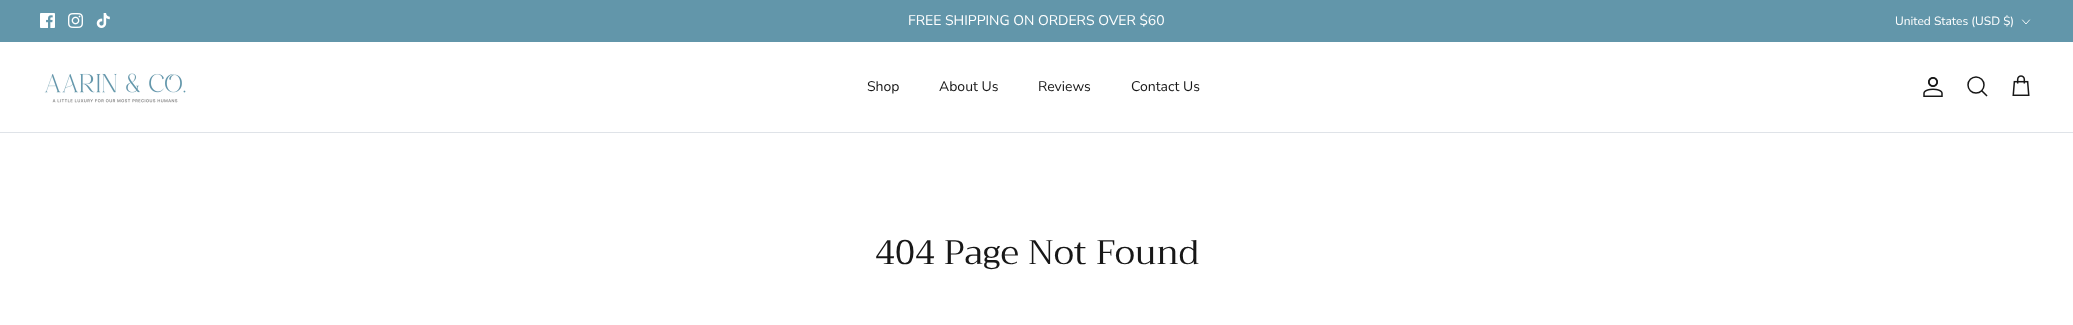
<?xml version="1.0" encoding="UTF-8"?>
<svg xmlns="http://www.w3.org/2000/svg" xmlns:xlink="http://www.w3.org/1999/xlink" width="2073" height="325">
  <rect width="100%" height="100%" fill="#ffffff" />
  <rect width="2073" height="42" fill="#6296aa" />
  <image x="40" y="13" width="15" height="15" xlink:href="image1.png" />
  <image x="68" y="13" width="15" height="15" xlink:href="image2.png" />
  <image x="96" y="13" width="14" height="15" xlink:href="image3.png" />
  <path d="M 2022.5 20 l 3.5 4 l 3.5 -4" fill="none" stroke="#ffffff" stroke-width="0.9" stroke-linecap="round" stroke-linejoin="round" />
  <rect y="132" width="2073" height="1" fill="#dfe3e8" />
  <image x="44" y="73" width="142" height="30" xlink:href="image4.png" />
  <image x="1923" y="77" width="20" height="20" xlink:href="image5.png" />
  <circle cx="1976" cy="85" r="8" fill="none" stroke="#171717" stroke-width="1.5" />
  <path d="M 1982 91 l 4.5 4.5" fill="none" stroke="#171717" stroke-width="1.5" stroke-linecap="square" />
  <image x="2012" y="75" width="18" height="21" xlink:href="image6.png" />
  <text x="908" y="25" style="font-family: Nunito Sans; font-size: 14px; font-weight: 200; fill: #ffffff">FREE SHIPPING ON ORDERS OVER $60</text>
  <text x="1895" y="25" style="font-family: Nunito Sans; font-size: 12px; font-weight: 200; fill: #ffffff">United States (USD $)</text>
  <text x="867" y="91" style="font-family: Nunito Sans; font-size: 14px; font-weight: 200; fill: #171717">Shop</text>
  <text x="939" y="91" style="font-family: Nunito Sans; font-size: 14px; font-weight: 200; fill: #171717">About Us</text>
  <text x="1038" y="91" style="font-family: Nunito Sans; font-size: 14px; font-weight: 200; fill: #171717">Reviews</text>
  <text x="1131" y="91" style="font-family: Nunito Sans; font-size: 14px; font-weight: 200; fill: #171717">Contact Us</text>
  <text x="875" y="264" style="font-family: Trirong; font-size: 34px; fill: #171717">404 Page Not Found</text>
</svg>
